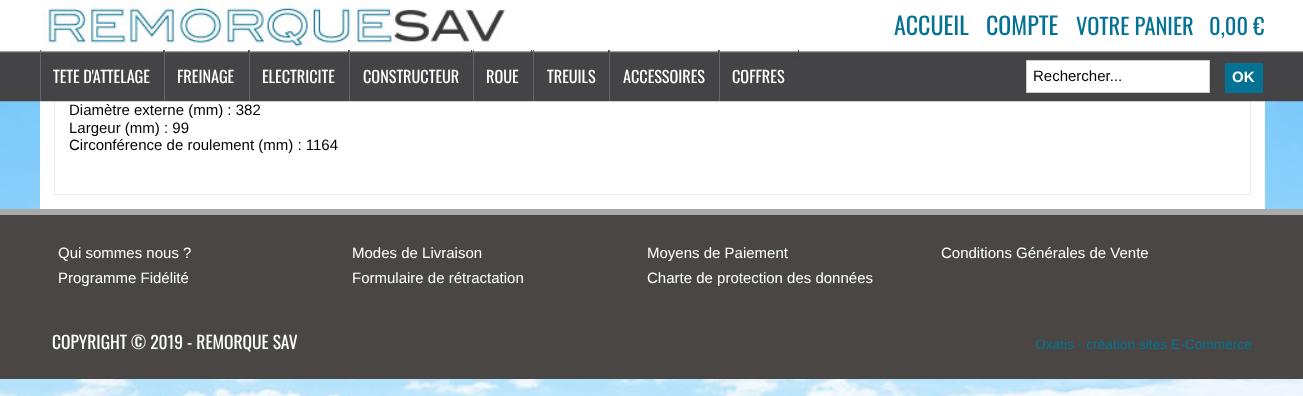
<?xml version="1.0" encoding="UTF-8"?>
<svg xmlns="http://www.w3.org/2000/svg" xmlns:xlink="http://www.w3.org/1999/xlink" width="1303" height="396">
  <rect width="100%" height="100%" fill="#ffffff" />
  <image x="0" y="101" width="1303" height="295" xlink:href="image1.png" />
  <rect x="40" y="101" width="1225" height="108" fill="#ffffff" />
  <rect x="54.5" y="-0.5" width="1196" height="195" fill="none" stroke="#ebebeb" />
  <image x="0" y="0" width="1303" height="102" xlink:href="image2.png" />
  <image x="40" y="0" width="467" height="50" xlink:href="image3.png" />
  <rect x="1026.5" y="60.5" width="183" height="32" fill="#ffffff" stroke="#cccccc" />
  <rect x="1225" y="63" width="38" height="30" fill="#047294" />
  <rect x="163" y="50" width="1" height="10" fill="#444444" />
  <rect x="40" y="50" width="1" height="51" fill="#666666" />
  <rect x="248" y="50" width="1" height="10" fill="#444444" />
  <rect x="164" y="50" width="1" height="51" fill="#666666" />
  <rect x="348" y="50" width="1" height="10" fill="#444444" />
  <rect x="249" y="50" width="1" height="51" fill="#666666" />
  <rect x="471" y="50" width="1" height="10" fill="#444444" />
  <rect x="349" y="50" width="1" height="51" fill="#666666" />
  <rect x="531" y="50" width="1" height="10" fill="#444444" />
  <rect x="473" y="50" width="1" height="51" fill="#666666" />
  <rect x="608" y="50" width="1" height="10" fill="#444444" />
  <rect x="533" y="50" width="1" height="51" fill="#666666" />
  <rect x="718" y="50" width="1" height="10" fill="#444444" />
  <rect x="609" y="50" width="1" height="51" fill="#666666" />
  <rect x="798" y="50" width="1" height="10" fill="#444444" />
  <rect x="719" y="50" width="1" height="51" fill="#666666" />
  <rect y="215" width="1303" height="164" fill="#4a4643" />
  <rect y="209" width="1303" height="6" fill="#aaaaaa" />
  <text x="894" y="35" style="font-family: Oswald; font-size: 24px; fill: #047294">ACCUEIL</text>
  <text x="986" y="35" style="font-family: Oswald; font-size: 24px; fill: #047294">COMPTE</text>
  <text x="1076" y="35" style="font-family: Oswald; font-size: 22.5px; fill: #047294">VOTRE PANIER</text>
  <text x="1209" y="35" style="font-family: Oswald; font-size: 22.5px; fill: #047294">0,00 €</text>
  <text x="1033" y="81" style="font-family: Liberation Sans; font-size: 15px; fill: #000000">Rechercher...</text>
  <text x="1232" y="82" style="font-family: Liberation Sans; font-size: 15px; font-weight: bold; fill: #ffffff">OK</text>
  <text x="53" y="83" style="font-family: Oswald; font-size: 16.25px; fill: #ffffff">TETE D'ATTELAGE</text>
  <text x="177" y="83" style="font-family: Oswald; font-size: 16.25px; fill: #ffffff">FREINAGE</text>
  <text x="262" y="83" style="font-family: Oswald; font-size: 16.25px; fill: #ffffff">ELECTRICITE</text>
  <text x="363" y="83" style="font-family: Oswald; font-size: 16.25px; fill: #ffffff">CONSTRUCTEUR</text>
  <text x="486" y="83" style="font-family: Oswald; font-size: 16.25px; fill: #ffffff">ROUE</text>
  <text x="547" y="83" style="font-family: Oswald; font-size: 16.25px; fill: #ffffff">TREUILS</text>
  <text x="623" y="83" style="font-family: Oswald; font-size: 16.25px; fill: #ffffff">ACCESSOIRES</text>
  <text x="732" y="83" style="font-family: Oswald; font-size: 16.25px; fill: #ffffff">COFFRES</text>
  <text x="69" y="115" style="font-family: Liberation Sans; font-size: 15px; fill: #000000">Diamètre externe (mm) : 382</text>
  <text x="69" y="133" style="font-family: Liberation Sans; font-size: 15px; fill: #000000">Largeur (mm) : 99</text>
  <text x="69" y="150" style="font-family: Liberation Sans; font-size: 15px; fill: #000000">Circonférence de roulement (mm) : 1164</text>
  <text x="58" y="258" style="font-family: Liberation Sans; font-size: 15px; fill: #ffffff">Qui sommes nous ?</text>
  <text x="352" y="258" style="font-family: Liberation Sans; font-size: 15px; fill: #ffffff">Modes de Livraison</text>
  <text x="647" y="258" style="font-family: Liberation Sans; font-size: 15px; fill: #ffffff">Moyens de Paiement</text>
  <text x="941" y="258" style="font-family: Liberation Sans; font-size: 15px; fill: #ffffff">Conditions Générales de Vente</text>
  <text x="58" y="283" style="font-family: Liberation Sans; font-size: 15px; fill: #ffffff">Programme Fidélité</text>
  <text x="352" y="283" style="font-family: Liberation Sans; font-size: 15px; fill: #ffffff">Formulaire de rétractation</text>
  <text x="647" y="283" style="font-family: Liberation Sans; font-size: 15px; fill: #ffffff">Charte de protection des données</text>
  <text x="52" y="349" style="font-family: Oswald; font-size: 17.5px; fill: #ffffff">COPYRIGHT © 2019 - REMORQUE SAV</text>
  <text x="1035" y="349" style="font-family: Liberation Sans; font-size: 13.75px; fill: #047294">Oxatis - création sites E-Commerce</text>
</svg>
